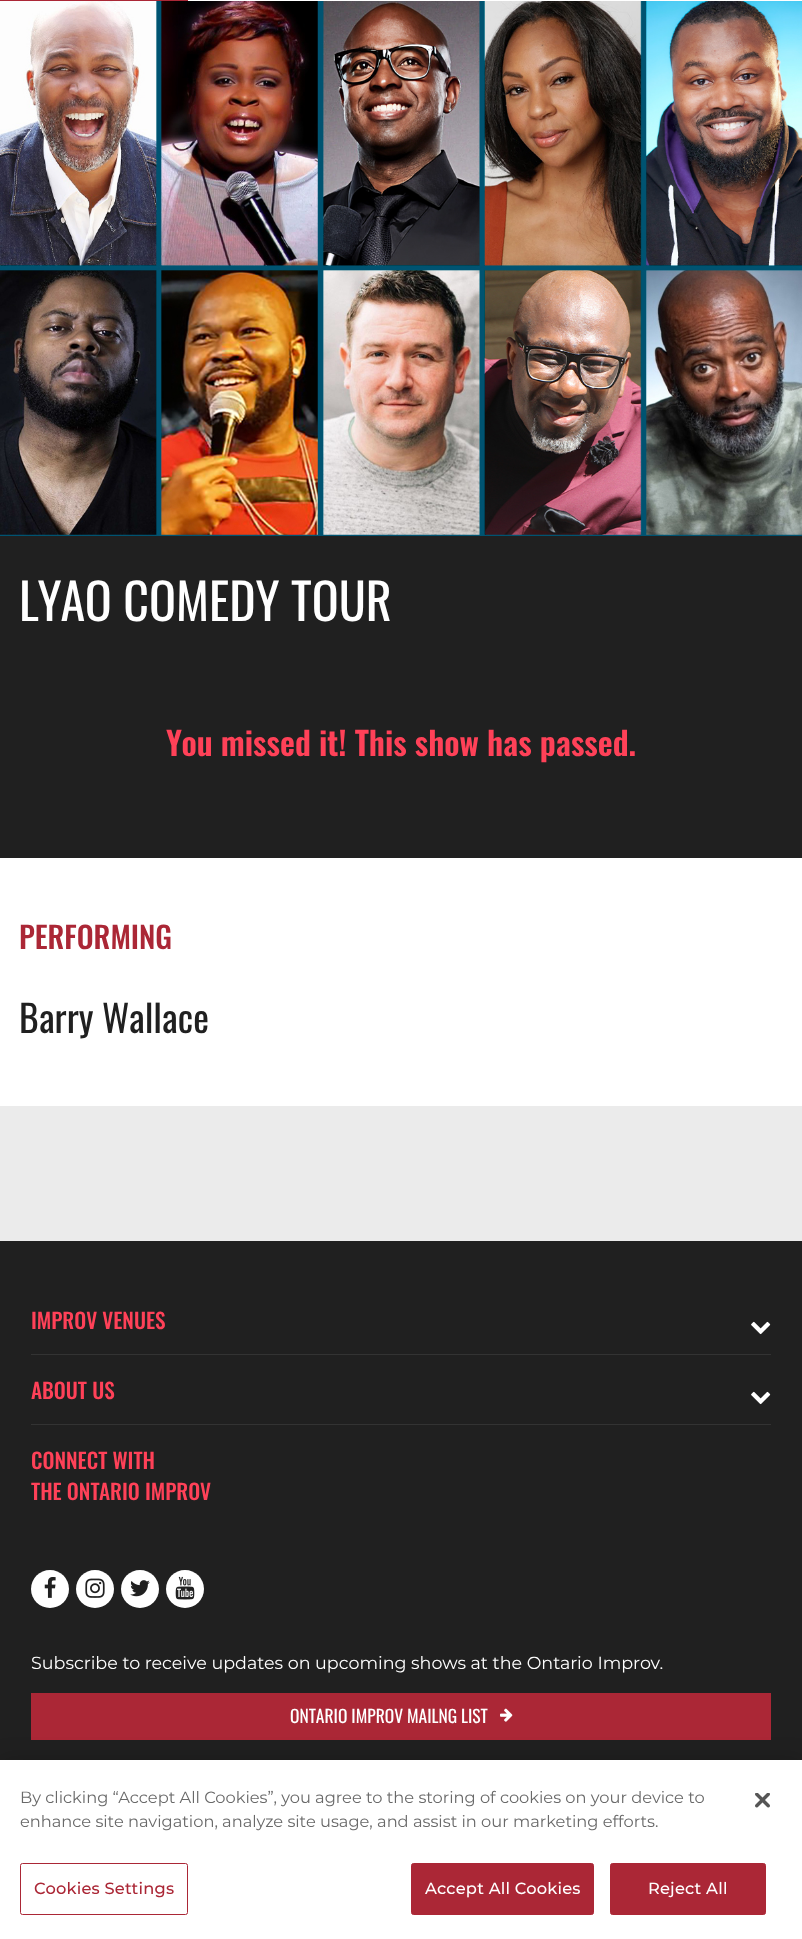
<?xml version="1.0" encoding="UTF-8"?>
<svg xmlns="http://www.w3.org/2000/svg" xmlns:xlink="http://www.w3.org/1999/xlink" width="802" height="1939">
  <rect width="100%" height="100%" fill="#ebebeb" />
  <rect x="188" width="614" height="1" fill="#ffffff" />
  <rect width="188" height="1" fill="#ab2736" />
  <rect y="536" width="802" height="322" fill="#202020" />
  <image x="0" y="1" width="802" height="535" xlink:href="image1.png" />
  <rect y="858" width="802" height="248" fill="#ffffff" />
  <rect y="1241" width="802" height="519" fill="#202020" />
  <rect x="31" y="1354" width="740" height="1" fill="#333333" />
  <image x="751" y="1321" width="20" height="14" xlink:href="image2.png" />
  <rect x="31" y="1424" width="740" height="1" fill="#333333" />
  <image x="751" y="1391" width="20" height="14" xlink:href="image2.png" />
  <circle cx="50" cy="1589" r="19" fill="#ffffff" />
  <image x="44" y="1577" width="12" height="21" xlink:href="image3.png" />
  <circle cx="95" cy="1589" r="19" fill="#ffffff" />
  <image x="85" y="1578" width="20" height="20" xlink:href="image4.png" />
  <circle cx="140" cy="1589" r="19" fill="#ffffff" />
  <image x="130" y="1580" width="20" height="17" xlink:href="image5.png" />
  <circle cx="185" cy="1589" r="19" fill="#ffffff" />
  <image x="175" y="1576" width="20" height="24" xlink:href="image6.png" />
  <rect x="31" y="1693" width="740" height="47" fill="#ab2736" />
  <image x="500" y="1708" width="13" height="14" xlink:href="image7.png" />
  <rect y="1760" width="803" height="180" fill="#000000" fill-opacity="0.2" filter="blur(11px)" />
  <rect y="1760" width="802" height="179" fill="#ffffff" />
  <rect x="20.5" y="1863.5" width="167" height="51" rx="2" fill="none" stroke="#ab2736" />
  <rect x="411.5" y="1863.5" width="182" height="51" rx="2" fill="#ab2736" stroke="#ab2736" />
  <rect x="610.5" y="1863.5" width="155" height="51" rx="2" fill="#ab2736" stroke="#ab2736" />
  <image x="755" y="1793" width="15" height="15" xlink:href="image8.png" />
  <text x="19" y="621" style="font-family: Oswald; font-size: 50px; fill: #ffffff">LYAO COMEDY TOUR</text>
  <text x="166" y="756" style="font-family: Oswald; font-size: 32.5px; font-weight: 600; fill: #ff4158">You missed it! This show has passed.</text>
  <text x="19" y="949" style="font-family: Oswald; font-size: 30px; font-weight: 500; fill: #ab2736">PERFORMING</text>
  <text x="19" y="1033" style="font-family: Oswald; font-size: 37.5px; fill: #202020">Barry Wallace</text>
  <text x="31" y="1329" style="font-family: Oswald; font-size: 21.25px; font-weight: 500; fill: #ff4158">IMPROV VENUES</text>
  <text x="31" y="1399" style="font-family: Oswald; font-size: 21.25px; font-weight: 500; fill: #ff4158">ABOUT US</text>
  <text x="31" y="1469" style="font-family: Oswald; font-size: 21.25px; font-weight: 500; fill: #ff4158">CONNECT WITH</text>
  <text x="31" y="1500" style="font-family: Oswald; font-size: 21.25px; font-weight: 500; fill: #ff4158">THE ONTARIO IMPROV</text>
  <text x="31" y="1669" style="font-family: Montserrat; font-size: 17.5px; fill: #ffffff">Subscribe to receive updates on upcoming shows at the Ontario Improv.</text>
  <text x="290" y="1723" style="font-family: Oswald; font-size: 17.5px; fill: #ffffff">ONTARIO IMPROV MAILNG LIST</text>
  <text x="20" y="1803" style="font-family: Montserrat; font-size: 16.25px; fill: #696969">By clicking “Accept All Cookies”, you agree to the storing of cookies on your device to</text>
  <text x="20" y="1827" style="font-family: Montserrat; font-size: 16.25px; fill: #696969">enhance site navigation, analyze site usage, and assist in our marketing efforts.</text>
  <text x="34" y="1894" style="font-family: Montserrat; font-size: 16.25px; font-weight: 500; letter-spacing: 0.2px; fill: #ab2736">Cookies Settings</text>
  <text x="425" y="1894" style="font-family: Montserrat; font-size: 16.25px; font-weight: 500; letter-spacing: 0.2px; fill: #ffffff">Accept All Cookies</text>
  <text x="648" y="1894" style="font-family: Montserrat; font-size: 16.25px; font-weight: 500; letter-spacing: 0.2px; fill: #ffffff">Reject All</text>
</svg>
